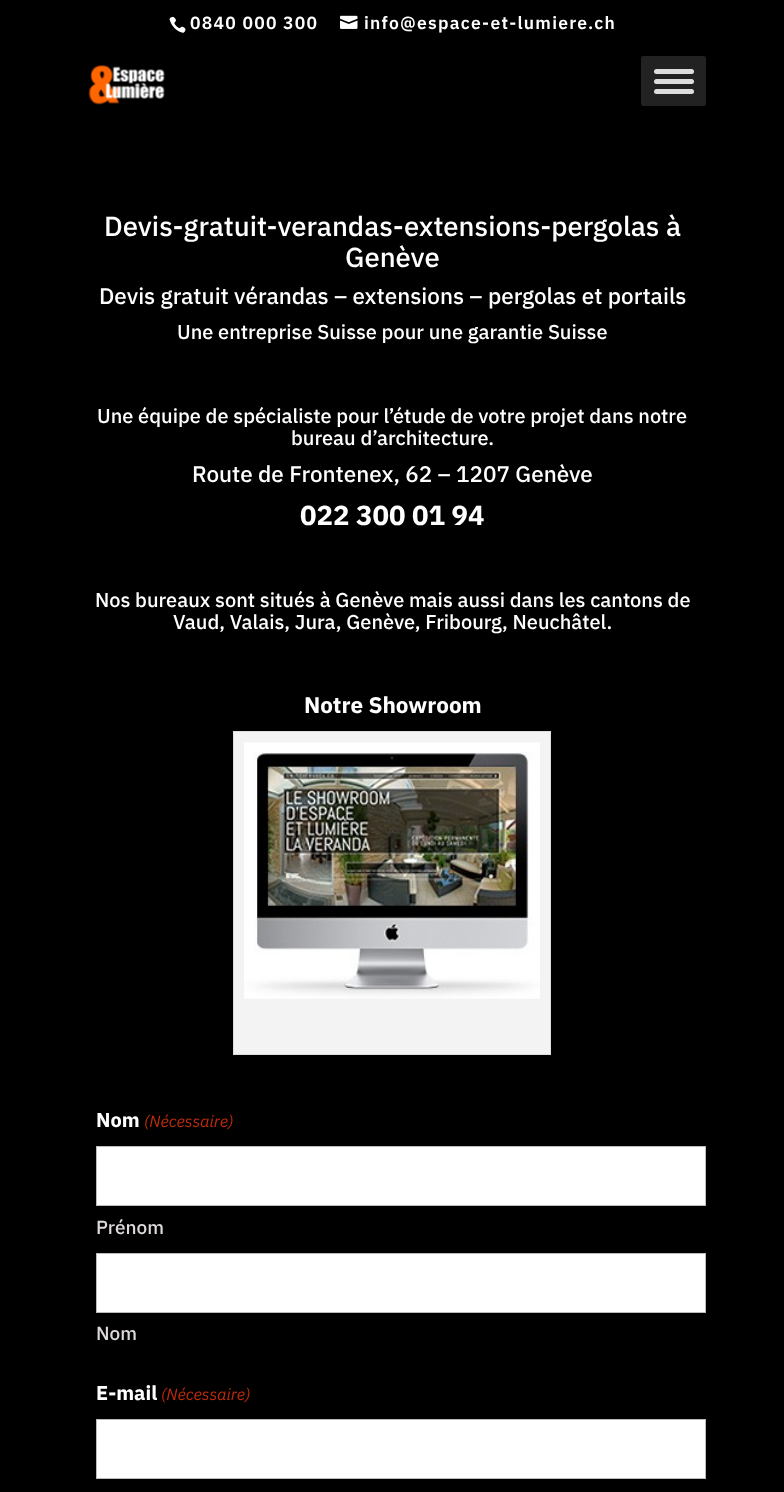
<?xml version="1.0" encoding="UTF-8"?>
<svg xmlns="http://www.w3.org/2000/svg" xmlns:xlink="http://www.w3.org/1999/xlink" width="784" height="1492">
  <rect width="100%" height="100%" fill="#000000" />
  <image x="169" y="16" width="17" height="17" xlink:href="image1.png" />
  <image x="340" y="15" width="18" height="14" xlink:href="image2.png" />
  <image x="88" y="65" width="77" height="40" xlink:href="image3.png" />
  <rect x="641" y="56" width="65" height="50" rx="2.5" fill="#222222" />
  <rect x="654" y="69" width="40" height="5" rx="2.5" fill="#dddddd" />
  <rect x="654" y="79" width="40" height="5" rx="2.5" fill="#dddddd" />
  <rect x="654" y="89" width="40" height="5" rx="2.5" fill="#dddddd" />
  <rect x="233.5" y="731.5" width="317" height="323" fill="#f3f3f3" stroke="#dddddd" />
  <image x="244" y="742" width="296" height="257" xlink:href="image4.png" />
  <rect x="96.5" y="1146.5" width="609" height="59" fill="#ffffff" stroke="#bbbbbb" />
  <rect x="96.5" y="1253.5" width="609" height="59" fill="#ffffff" stroke="#bbbbbb" />
  <rect x="96.5" y="1419.5" width="609" height="59" fill="#ffffff" stroke="#bbbbbb" />
  <text x="190" y="29" style="font-family: IBM Plex Sans; font-size: 17.5px; font-weight: 600; letter-spacing: 1.25px; fill: #ffffff">0840 000 300</text>
  <text x="364" y="29" style="font-family: IBM Plex Sans; font-size: 17.5px; font-weight: 600; letter-spacing: 1.25px; fill: #ffffff">info@espace-et-lumiere.ch</text>
  <text x="104" y="236" style="font-family: IBM Plex Sans; font-size: 27.5px; font-weight: 500; fill: #ffffff">Devis-gratuit-verandas-extensions-pergolas à</text>
  <text x="345" y="267" style="font-family: IBM Plex Sans; font-size: 27.5px; font-weight: 500; fill: #ffffff">Genève</text>
  <text x="99" y="304" style="font-family: IBM Plex Sans; font-size: 22.5px; font-weight: 500; fill: #ffffff">Devis gratuit vérandas – extensions – pergolas et portails</text>
  <text x="177" y="339" style="font-family: IBM Plex Sans; font-size: 20px; font-weight: 500; fill: #ffffff">Une entreprise Suisse pour une garantie Suisse</text>
  <text x="97" y="423" style="font-family: IBM Plex Sans; font-size: 20px; font-weight: 500; fill: #ffffff">Une équipe de spécialiste pour l’étude de votre projet dans notre</text>
  <text x="291" y="445" style="font-family: IBM Plex Sans; font-size: 20px; font-weight: 500; fill: #ffffff">bureau d’architecture.</text>
  <text x="192" y="482" style="font-family: IBM Plex Sans; font-size: 22.5px; font-weight: 500; fill: #ffffff">Route de Frontenex, 62 – 1207 Genève</text>
  <text x="300" y="525" style="font-family: IBM Plex Sans; font-size: 27.5px; font-weight: bold; fill: #ffffff">022 300 01 94</text>
  <text x="95" y="607" style="font-family: IBM Plex Sans; font-size: 20px; font-weight: 500; fill: #ffffff">Nos bureaux sont situés à Genève mais aussi dans les cantons de</text>
  <text x="173" y="629" style="font-family: IBM Plex Sans; font-size: 20px; font-weight: 500; fill: #ffffff">Vaud, Valais, Jura, Genève, Fribourg, Neuchâtel.</text>
  <text x="304" y="713" style="font-family: IBM Plex Sans; font-size: 22.5px; font-weight: bold; fill: #ffffff">Notre Showroom</text>
  <text x="96" y="1127" style="font-family: IBM Plex Sans; font-size: 20px; font-weight: bold; fill: #ffffff">Nom</text>
  <text x="144" y="1127" style="font-family: IBM Plex Sans; font-size: 16.25px; font-style: italic; fill: #c02b0a">(Nécessaire)</text>
  <text x="96" y="1234" style="font-family: IBM Plex Sans; font-size: 19px; font-weight: 500; fill: #dedada">Prénom</text>
  <text x="96" y="1340" style="font-family: IBM Plex Sans; font-size: 19px; font-weight: 500; fill: #dedada">Nom</text>
  <text x="96" y="1400" style="font-family: IBM Plex Sans; font-size: 20px; font-weight: bold; fill: #ffffff">E-mail</text>
  <text x="161" y="1400" style="font-family: IBM Plex Sans; font-size: 16.25px; font-style: italic; fill: #c02b0a">(Nécessaire)</text>
</svg>
